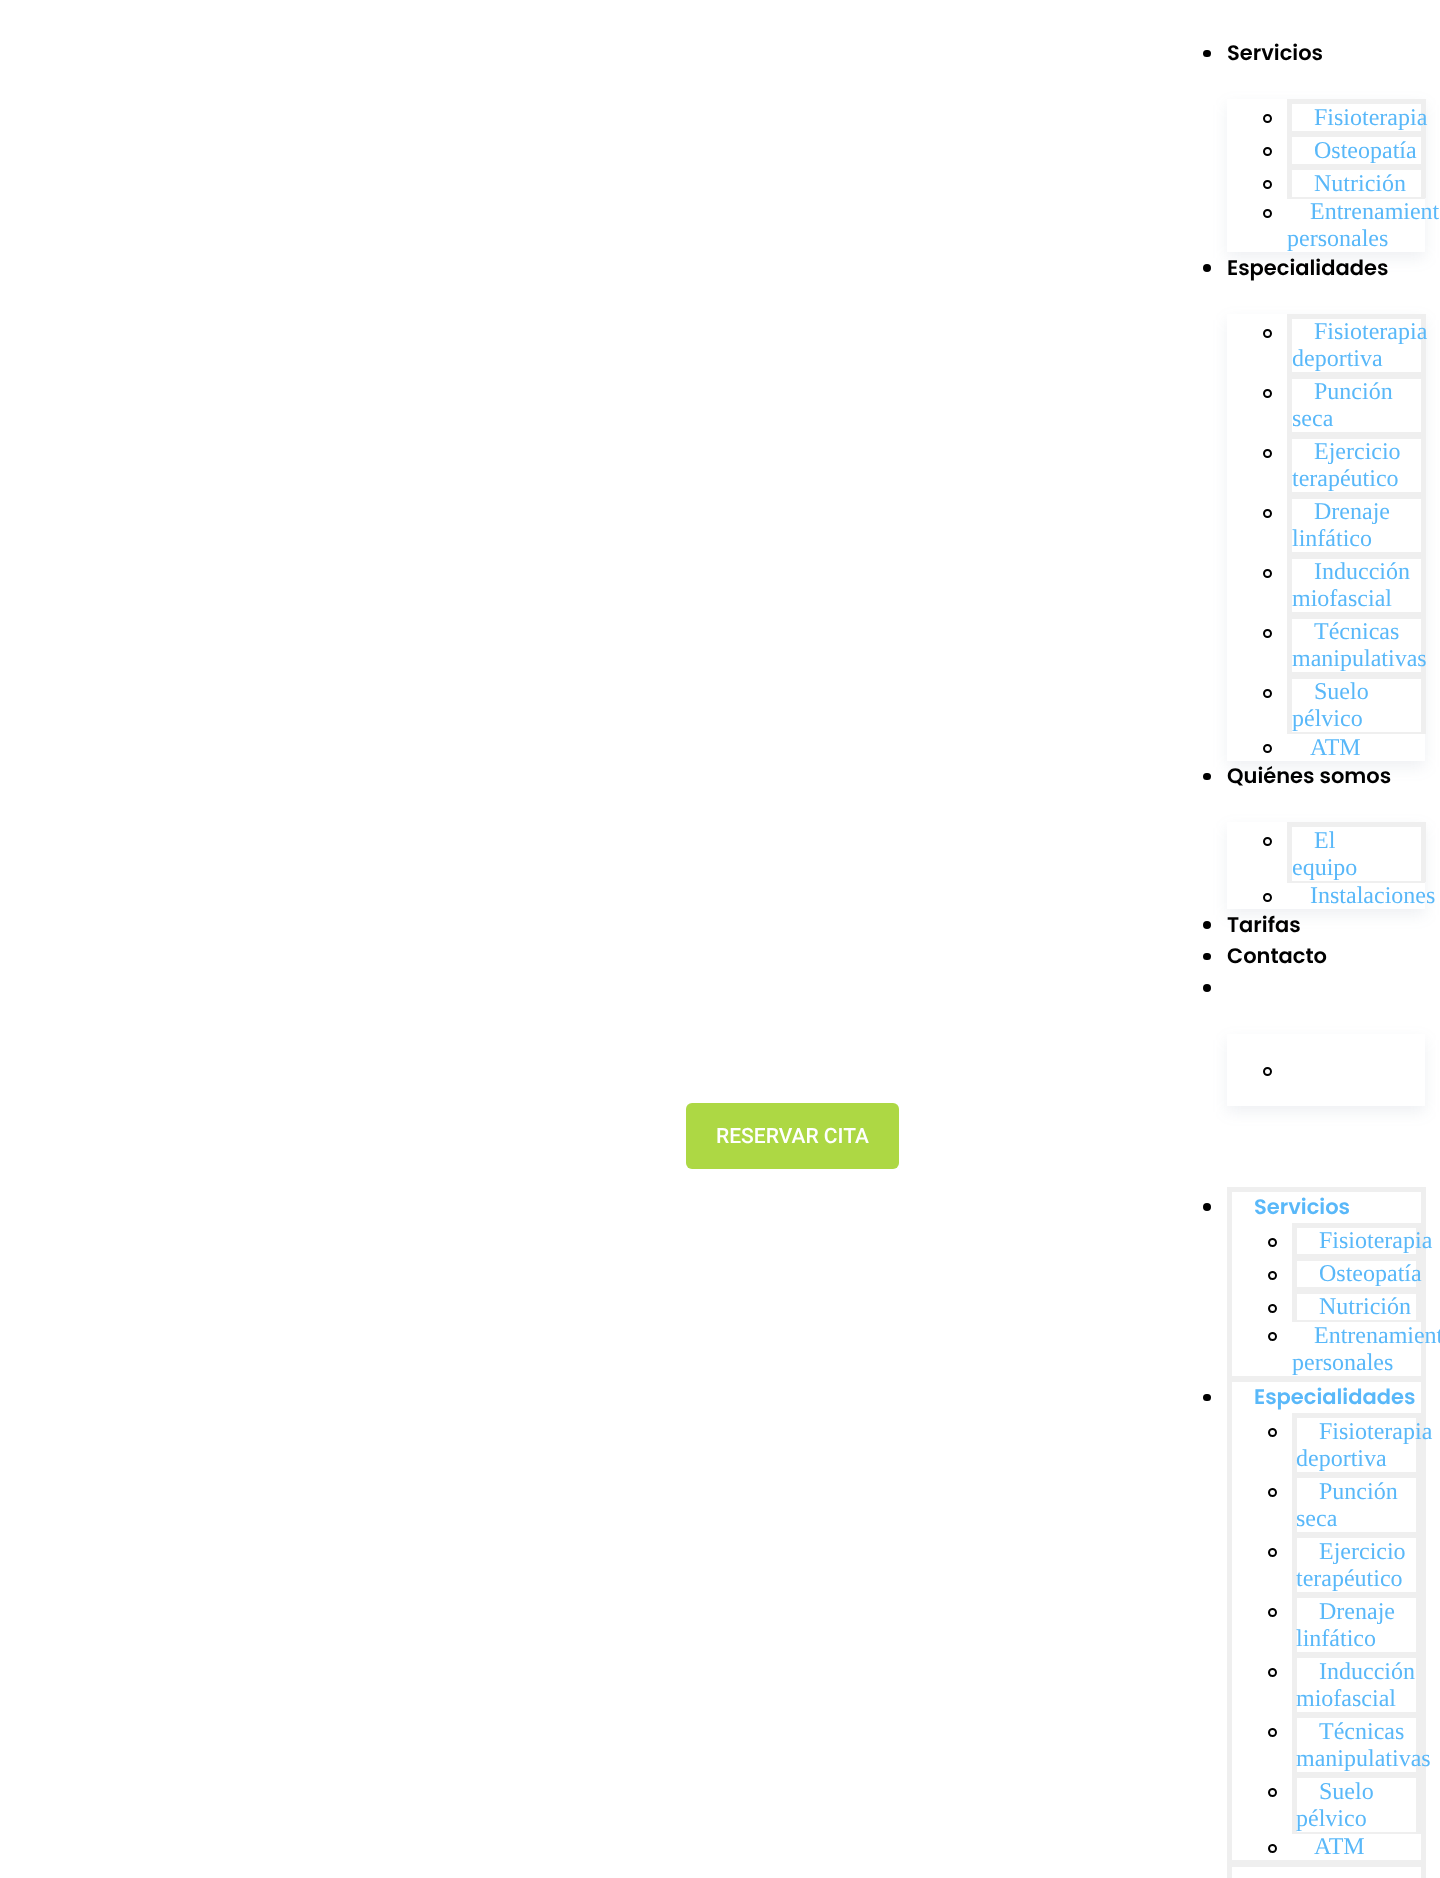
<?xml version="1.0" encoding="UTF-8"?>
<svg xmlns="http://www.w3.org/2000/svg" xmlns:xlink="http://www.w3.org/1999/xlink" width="1440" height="1878">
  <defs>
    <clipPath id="clip1"><path d="M 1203 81 h 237 v 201 h -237 z m 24 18 h 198 v 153 h -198 z" clip-rule="evenodd" /></clipPath>
    <clipPath id="clip2"><path d="M 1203 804 h 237 v 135 h -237 z m 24 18 h 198 v 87 h -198 z" clip-rule="evenodd" /></clipPath>
  </defs>
  <rect width="100%" height="100%" fill="#ffffff" />
  <rect x="686" y="1103" width="213" height="66" rx="6" fill="#add844" />
  <rect x="1203" y="50" width="8" height="7" rx="3.5" fill="#000000" />
  <g clip-path="url(#clip1)">
    <rect x="1227" y="105" width="198" height="153" fill="#566c8e" fill-opacity="0.1" filter="blur(7.5px)" />
  </g>
  <rect x="1287" y="99" width="138" height="5" fill="#efefef" />
  <rect x="1421" y="99" width="5" height="33" fill="#efefef" />
  <rect x="1287" y="131" width="138" height="6" fill="#efefef" />
  <rect x="1287" y="99" width="5" height="33" fill="#efefef" />
  <circle cx="1267.5" cy="118.5" r="3.5" fill="none" stroke="#000000" stroke-width="2" />
  <rect x="1421" y="132" width="5" height="33" fill="#efefef" />
  <rect x="1287" y="164" width="138" height="6" fill="#efefef" />
  <rect x="1287" y="132" width="5" height="33" fill="#efefef" />
  <circle cx="1267.5" cy="151.5" r="3.5" fill="none" stroke="#000000" stroke-width="2" />
  <rect x="1421" y="165" width="5" height="33" fill="#efefef" />
  <rect x="1287" y="197" width="138" height="2" fill="#efefef" />
  <rect x="1287" y="165" width="5" height="33" fill="#efefef" />
  <circle cx="1267.5" cy="184.5" r="3.5" fill="none" stroke="#000000" stroke-width="2" />
  <circle cx="1267.5" cy="213.5" r="3.5" fill="none" stroke="#000000" stroke-width="2" />
  <circle cx="1207" cy="268" r="4" fill="#000000" />
  <rect x="1227" y="320" width="198" height="447" fill="#566c8e" fill-opacity="0.1" filter="blur(7.5px)" />
  <rect x="1227" y="314" width="198" height="447" fill="#ffffff" />
  <rect x="1287" y="314" width="138" height="5" fill="#efefef" />
  <rect x="1421" y="314" width="5" height="60" fill="#efefef" />
  <rect x="1287" y="372" width="138" height="7" fill="#efefef" />
  <rect x="1287" y="314" width="5" height="60" fill="#efefef" />
  <circle cx="1267.5" cy="333.5" r="3.5" fill="none" stroke="#000000" stroke-width="2" />
  <rect x="1421" y="374" width="5" height="60" fill="#efefef" />
  <rect x="1287" y="432" width="138" height="7" fill="#efefef" />
  <rect x="1287" y="374" width="5" height="60" fill="#efefef" />
  <circle cx="1267.5" cy="393.5" r="3.5" fill="none" stroke="#000000" stroke-width="2" />
  <rect x="1421" y="434" width="5" height="60" fill="#efefef" />
  <rect x="1287" y="492" width="138" height="7" fill="#efefef" />
  <rect x="1287" y="434" width="5" height="60" fill="#efefef" />
  <circle cx="1267.5" cy="453.5" r="3.5" fill="none" stroke="#000000" stroke-width="2" />
  <rect x="1421" y="494" width="5" height="60" fill="#efefef" />
  <rect x="1287" y="552" width="138" height="7" fill="#efefef" />
  <rect x="1287" y="494" width="5" height="60" fill="#efefef" />
  <circle cx="1267.5" cy="513.5" r="3.5" fill="none" stroke="#000000" stroke-width="2" />
  <rect x="1421" y="554" width="5" height="60" fill="#efefef" />
  <rect x="1287" y="612" width="138" height="7" fill="#efefef" />
  <rect x="1287" y="554" width="5" height="60" fill="#efefef" />
  <circle cx="1267.5" cy="573.5" r="3.5" fill="none" stroke="#000000" stroke-width="2" />
  <rect x="1421" y="614" width="5" height="60" fill="#efefef" />
  <rect x="1287" y="672" width="138" height="7" fill="#efefef" />
  <rect x="1287" y="614" width="5" height="60" fill="#efefef" />
  <circle cx="1267.5" cy="633.5" r="3.5" fill="none" stroke="#000000" stroke-width="2" />
  <rect x="1421" y="674" width="5" height="60" fill="#efefef" />
  <rect x="1287" y="732" width="138" height="2" fill="#efefef" />
  <rect x="1287" y="674" width="5" height="60" fill="#efefef" />
  <circle cx="1267.5" cy="693.5" r="3.5" fill="none" stroke="#000000" stroke-width="2" />
  <circle cx="1267.5" cy="748.5" r="3.5" fill="none" stroke="#000000" stroke-width="2" />
  <rect x="1203" y="773" width="8" height="7" rx="3.5" fill="#000000" />
  <g clip-path="url(#clip2)">
    <rect x="1227" y="828" width="198" height="87" fill="#566c8e" fill-opacity="0.1" filter="blur(7.5px)" />
  </g>
  <rect x="1287" y="822" width="138" height="5" fill="#efefef" />
  <rect x="1421" y="822" width="5" height="60" fill="#efefef" />
  <rect x="1287" y="881" width="138" height="2" fill="#efefef" />
  <rect x="1287" y="822" width="5" height="60" fill="#efefef" />
  <circle cx="1267.5" cy="841.5" r="3.5" fill="none" stroke="#000000" stroke-width="2" />
  <circle cx="1267.5" cy="897.5" r="3.5" fill="none" stroke="#000000" stroke-width="2" />
  <circle cx="1207" cy="925" r="4" fill="#000000" />
  <rect x="1203" y="953" width="8" height="7" rx="3.5" fill="#000000" />
  <circle cx="1207" cy="988" r="4" fill="#000000" />
  <rect x="1227" y="1040" width="198" height="72" fill="#566c8e" fill-opacity="0.1" filter="blur(7.5px)" />
  <rect x="1227" y="1034" width="198" height="72" fill="#ffffff" />
  <circle cx="1267.5" cy="1071.5" r="3.5" fill="none" stroke="#000000" stroke-width="2" />
  <rect x="1227" y="1187" width="198" height="5" fill="#efefef" />
  <rect x="1421" y="1187" width="5" height="190" fill="#efefef" />
  <rect x="1227" y="1376" width="198" height="6" fill="#efefef" />
  <rect x="1227" y="1187" width="5" height="190" fill="#efefef" />
  <circle cx="1207" cy="1207" r="4" fill="#000000" />
  <rect x="1292" y="1223" width="129" height="5" fill="#efefef" />
  <rect x="1416" y="1223" width="5" height="33" fill="#efefef" />
  <rect x="1292" y="1254" width="129" height="7" fill="#efefef" />
  <rect x="1292" y="1223" width="5" height="33" fill="#efefef" />
  <circle cx="1272.5" cy="1242.5" r="3.5" fill="none" stroke="#000000" stroke-width="2" />
  <rect x="1416" y="1256" width="5" height="33" fill="#efefef" />
  <rect x="1292" y="1287" width="129" height="7" fill="#efefef" />
  <rect x="1292" y="1256" width="5" height="33" fill="#efefef" />
  <circle cx="1272.5" cy="1275.5" r="3.5" fill="none" stroke="#000000" stroke-width="2" />
  <rect x="1416" y="1289" width="5" height="33" fill="#efefef" />
  <rect x="1292" y="1320" width="129" height="2" fill="#efefef" />
  <rect x="1292" y="1289" width="5" height="33" fill="#efefef" />
  <circle cx="1272.5" cy="1308.5" r="3.5" fill="none" stroke="#000000" stroke-width="2" />
  <circle cx="1272.5" cy="1336.5" r="3.5" fill="none" stroke="#000000" stroke-width="2" />
  <rect x="1421" y="1377" width="5" height="485" fill="#efefef" />
  <rect x="1227" y="1860" width="198" height="7" fill="#efefef" />
  <rect x="1227" y="1377" width="5" height="501" fill="#efefef" />
  <rect x="1203" y="1394" width="8" height="7" rx="3.5" fill="#000000" />
  <rect x="1292" y="1413" width="129" height="5" fill="#efefef" />
  <rect x="1416" y="1413" width="5" height="60" fill="#efefef" />
  <rect x="1292" y="1472" width="129" height="6" fill="#efefef" />
  <rect x="1292" y="1413" width="5" height="60" fill="#efefef" />
  <circle cx="1272.5" cy="1432.5" r="3.5" fill="none" stroke="#000000" stroke-width="2" />
  <rect x="1416" y="1473" width="5" height="60" fill="#efefef" />
  <rect x="1292" y="1532" width="129" height="6" fill="#efefef" />
  <rect x="1292" y="1473" width="5" height="60" fill="#efefef" />
  <circle cx="1272.5" cy="1492.5" r="3.5" fill="none" stroke="#000000" stroke-width="2" />
  <rect x="1416" y="1533" width="5" height="60" fill="#efefef" />
  <rect x="1292" y="1592" width="129" height="6" fill="#efefef" />
  <rect x="1292" y="1533" width="5" height="60" fill="#efefef" />
  <circle cx="1272.5" cy="1552.5" r="3.5" fill="none" stroke="#000000" stroke-width="2" />
  <rect x="1416" y="1593" width="5" height="60" fill="#efefef" />
  <rect x="1292" y="1652" width="129" height="6" fill="#efefef" />
  <rect x="1292" y="1593" width="5" height="60" fill="#efefef" />
  <circle cx="1272.5" cy="1612.5" r="3.5" fill="none" stroke="#000000" stroke-width="2" />
  <rect x="1416" y="1653" width="5" height="60" fill="#efefef" />
  <rect x="1292" y="1712" width="129" height="6" fill="#efefef" />
  <rect x="1292" y="1653" width="5" height="60" fill="#efefef" />
  <circle cx="1272.5" cy="1672.5" r="3.5" fill="none" stroke="#000000" stroke-width="2" />
  <rect x="1416" y="1713" width="5" height="60" fill="#efefef" />
  <rect x="1292" y="1772" width="129" height="6" fill="#efefef" />
  <rect x="1292" y="1713" width="5" height="60" fill="#efefef" />
  <circle cx="1272.5" cy="1732.5" r="3.5" fill="none" stroke="#000000" stroke-width="2" />
  <rect x="1416" y="1773" width="5" height="60" fill="#efefef" />
  <rect x="1292" y="1832" width="129" height="2" fill="#efefef" />
  <rect x="1292" y="1773" width="5" height="60" fill="#efefef" />
  <circle cx="1272.5" cy="1792.5" r="3.5" fill="none" stroke="#000000" stroke-width="2" />
  <circle cx="1272.5" cy="1848.5" r="3.5" fill="none" stroke="#000000" stroke-width="2" />
  <rect x="1421" y="1862" width="5" height="16" fill="#efefef" />
  <text x="716" y="1143" style="font-family: Roboto; font-size: 21px; font-weight: 500; fill: #ffffff">RESERVAR CITA</text>
  <text x="1227" y="60" style="font-family: Poppins; font-size: 21px; font-weight: 600; fill: #000000">Servicios</text>
  <text x="1314" y="125" style="font-family: Liberation Serif; font-size: 24px; fill: #59b8f9">Fisioterapia</text>
  <text x="1314" y="158" style="font-family: Liberation Serif; font-size: 24px; fill: #59b8f9">Osteopatía</text>
  <text x="1314" y="191" style="font-family: Liberation Serif; font-size: 24px; fill: #59b8f9">Nutrición</text>
  <text x="1310" y="219" style="font-family: Liberation Serif; font-size: 24px; fill: #59b8f9">Entrenamient</text>
  <text x="1287" y="246" style="font-family: Liberation Serif; font-size: 24px; fill: #59b8f9">personales</text>
  <text x="1227" y="275" style="font-family: Poppins; font-size: 21px; font-weight: 600; fill: #000000">Especialidades</text>
  <text x="1314" y="339" style="font-family: Liberation Serif; font-size: 24px; fill: #59b8f9">Fisioterapia</text>
  <text x="1292" y="366" style="font-family: Liberation Serif; font-size: 24px; fill: #59b8f9">deportiva</text>
  <text x="1314" y="399" style="font-family: Liberation Serif; font-size: 24px; fill: #59b8f9">Punción</text>
  <text x="1292" y="426" style="font-family: Liberation Serif; font-size: 24px; fill: #59b8f9">seca</text>
  <text x="1314" y="459" style="font-family: Liberation Serif; font-size: 24px; fill: #59b8f9">Ejercicio</text>
  <text x="1292" y="486" style="font-family: Liberation Serif; font-size: 24px; fill: #59b8f9">terapéutico</text>
  <text x="1314" y="519" style="font-family: Liberation Serif; font-size: 24px; fill: #59b8f9">Drenaje</text>
  <text x="1292" y="546" style="font-family: Liberation Serif; font-size: 24px; fill: #59b8f9">linfático</text>
  <text x="1314" y="579" style="font-family: Liberation Serif; font-size: 24px; fill: #59b8f9">Inducción</text>
  <text x="1292" y="606" style="font-family: Liberation Serif; font-size: 24px; fill: #59b8f9">miofascial</text>
  <text x="1314" y="639" style="font-family: Liberation Serif; font-size: 24px; fill: #59b8f9">Técnicas</text>
  <text x="1292" y="666" style="font-family: Liberation Serif; font-size: 24px; fill: #59b8f9">manipulativas</text>
  <text x="1314" y="699" style="font-family: Liberation Serif; font-size: 24px; fill: #59b8f9">Suelo</text>
  <text x="1292" y="726" style="font-family: Liberation Serif; font-size: 24px; fill: #59b8f9">pélvico</text>
  <text x="1310" y="755" style="font-family: Liberation Serif; font-size: 24px; fill: #59b8f9">ATM</text>
  <text x="1227" y="783" style="font-family: Poppins; font-size: 21px; font-weight: 600; fill: #000000">Quiénes somos</text>
  <text x="1314" y="848" style="font-family: Liberation Serif; font-size: 24px; fill: #59b8f9">El</text>
  <text x="1292" y="875" style="font-family: Liberation Serif; font-size: 24px; fill: #59b8f9">equipo</text>
  <text x="1310" y="903" style="font-family: Liberation Serif; font-size: 24px; fill: #59b8f9">Instalaciones</text>
  <text x="1227" y="932" style="font-family: Poppins; font-size: 21px; font-weight: 600; fill: #000000">Tarifas</text>
  <text x="1227" y="963" style="font-family: Poppins; font-size: 21px; font-weight: 600; fill: #000000">Contacto</text>
  <text x="1254" y="1214" style="font-family: Poppins; font-size: 21px; font-weight: 600; fill: #59b8f9">Servicios</text>
  <text x="1319" y="1248" style="font-family: Liberation Serif; font-size: 24px; fill: #59b8f9">Fisioterapia</text>
  <text x="1319" y="1281" style="font-family: Liberation Serif; font-size: 24px; fill: #59b8f9">Osteopatía</text>
  <text x="1319" y="1314" style="font-family: Liberation Serif; font-size: 24px; fill: #59b8f9">Nutrición</text>
  <text x="1314" y="1343" style="font-family: Liberation Serif; font-size: 24px; fill: #59b8f9">Entrenamient</text>
  <text x="1292" y="1370" style="font-family: Liberation Serif; font-size: 24px; fill: #59b8f9">personales</text>
  <text x="1254" y="1404" style="font-family: Poppins; font-size: 21px; font-weight: 600; fill: #59b8f9">Especialidades</text>
  <text x="1319" y="1439" style="font-family: Liberation Serif; font-size: 24px; fill: #59b8f9">Fisioterapia</text>
  <text x="1296" y="1466" style="font-family: Liberation Serif; font-size: 24px; fill: #59b8f9">deportiva</text>
  <text x="1319" y="1499" style="font-family: Liberation Serif; font-size: 24px; fill: #59b8f9">Punción</text>
  <text x="1296" y="1526" style="font-family: Liberation Serif; font-size: 24px; fill: #59b8f9">seca</text>
  <text x="1319" y="1559" style="font-family: Liberation Serif; font-size: 24px; fill: #59b8f9">Ejercicio</text>
  <text x="1296" y="1586" style="font-family: Liberation Serif; font-size: 24px; fill: #59b8f9">terapéutico</text>
  <text x="1319" y="1619" style="font-family: Liberation Serif; font-size: 24px; fill: #59b8f9">Drenaje</text>
  <text x="1296" y="1646" style="font-family: Liberation Serif; font-size: 24px; fill: #59b8f9">linfático</text>
  <text x="1319" y="1679" style="font-family: Liberation Serif; font-size: 24px; fill: #59b8f9">Inducción</text>
  <text x="1296" y="1706" style="font-family: Liberation Serif; font-size: 24px; fill: #59b8f9">miofascial</text>
  <text x="1319" y="1739" style="font-family: Liberation Serif; font-size: 24px; fill: #59b8f9">Técnicas</text>
  <text x="1296" y="1766" style="font-family: Liberation Serif; font-size: 24px; fill: #59b8f9">manipulativas</text>
  <text x="1319" y="1799" style="font-family: Liberation Serif; font-size: 24px; fill: #59b8f9">Suelo</text>
  <text x="1296" y="1826" style="font-family: Liberation Serif; font-size: 24px; fill: #59b8f9">pélvico</text>
  <text x="1314" y="1854" style="font-family: Liberation Serif; font-size: 24px; fill: #59b8f9">ATM</text>
</svg>
